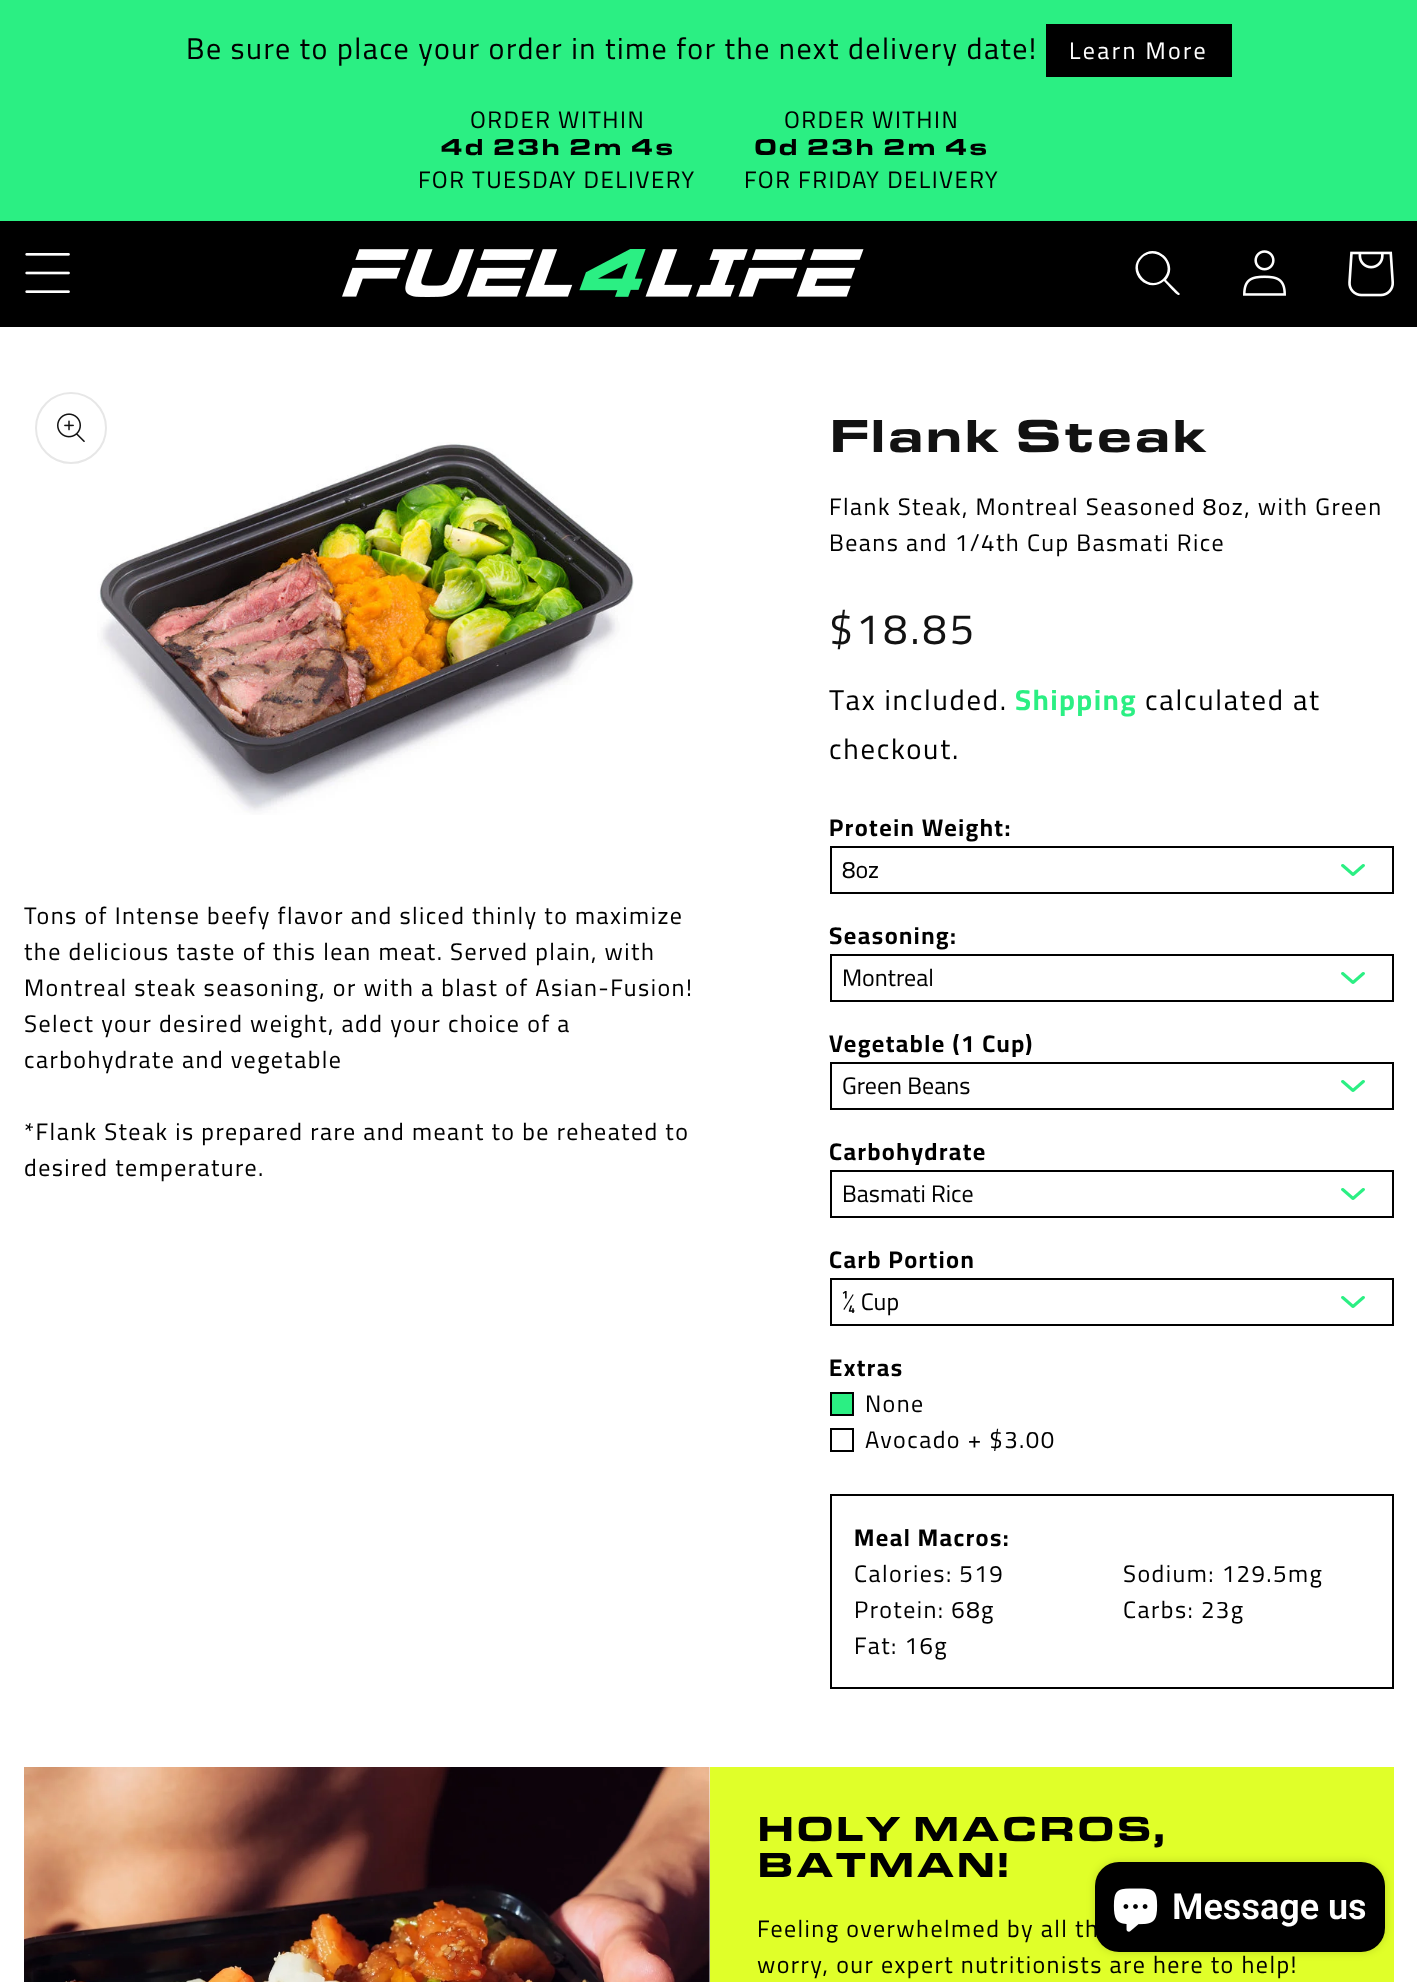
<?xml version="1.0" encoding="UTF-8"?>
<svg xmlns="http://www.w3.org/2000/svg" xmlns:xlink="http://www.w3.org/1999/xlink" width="1417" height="1982">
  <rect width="100%" height="100%" fill="#ffffff" />
  <rect width="1417" height="221" fill="#2bef83" />
  <rect x="1046" y="24" width="186" height="53" fill="#000000" />
  <rect y="221" width="1417" height="106" fill="#000000" />
  <image x="25" y="253" width="45" height="40" xlink:href="image1.png" />
  <image x="342" y="249" width="522" height="48" xlink:href="image2.png" />
  <path d="M 1163 279 c -13 13 -34 -8 -21 -21 c 14 -14 35 7 21 21 z m 1 2 c -17 14 -39 -10 -23 -25 c 15 -15 39 7 25 24 l 14 14 l -1 1 c -2 1 -13 -12 -15 -14 z" fill="#ffffff" fill-rule="evenodd" />
  <image x="1243" y="250" width="43" height="46" xlink:href="image3.png" />
  <image x="1348" y="251" width="46" height="46" xlink:href="image4.png" />
  <image x="97" y="442" width="537" height="373" xlink:href="image6.png" />
  <circle cx="71" cy="428" r="35" fill="none" stroke="#e7e7e7" stroke-width="2" />
  <image x="57" y="413" width="28" height="29" xlink:href="image5.png" />
  <image x="1341" y="864" width="24" height="12" xlink:href="image7.png" />
  <rect x="831" y="847" width="562" height="46" fill="none" stroke="#000000" stroke-width="2" />
  <image x="1341" y="972" width="24" height="12" xlink:href="image7.png" />
  <rect x="831" y="955" width="562" height="46" fill="none" stroke="#000000" stroke-width="2" />
  <image x="1341" y="1080" width="24" height="12" xlink:href="image7.png" />
  <rect x="831" y="1063" width="562" height="46" fill="none" stroke="#000000" stroke-width="2" />
  <image x="1341" y="1188" width="24" height="12" xlink:href="image7.png" />
  <rect x="831" y="1171" width="562" height="46" fill="none" stroke="#000000" stroke-width="2" />
  <image x="1341" y="1296" width="24" height="12" xlink:href="image7.png" />
  <rect x="831" y="1279" width="562" height="46" fill="none" stroke="#000000" stroke-width="2" />
  <rect x="831" y="1393" width="22" height="22" fill="#2bef83" stroke="#000000" stroke-width="2" />
  <rect x="831" y="1429" width="22" height="22" fill="none" stroke="#000000" stroke-width="2" />
  <rect x="831" y="1495" width="562" height="193" fill="none" stroke="#000000" stroke-width="2" />
  <image x="24" y="1767" width="686" height="215" xlink:href="image8.png" />
  <rect x="710" y="1767" width="684" height="215" fill="#e0ff29" />
  <rect x="1095" y="1862" width="290" height="90" rx="24" fill="#000000" fill-opacity="0.15" filter="blur(4px)" />
  <rect x="1095" y="1862" width="290" height="90" rx="24" fill="#000000" />
  <image x="1113" y="1888" width="45" height="44" xlink:href="image9.png" />
  <text x="186" y="59" style="font-family: Cairo; font-size: 30px; letter-spacing: 1.45px; fill: #000000">Be sure to place your order in time for the next delivery date!</text>
  <text x="1069" y="59" style="font-family: Cairo; font-size: 24px; letter-spacing: 2.4px; fill: #ffffff">Learn More</text>
  <text x="470" y="128" style="font-family: Cairo; font-size: 24px; letter-spacing: 1.45px; fill: #000000">ORDER WITHIN</text>
  <text x="440" y="155" style="font-family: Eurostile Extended; font-size: 24px; font-weight: 900; letter-spacing: 1.45px; fill: #000000">4d 23h 2m 4s</text>
  <text x="418" y="188" style="font-family: Cairo; font-size: 24px; letter-spacing: 1.45px; fill: #000000">FOR TUESDAY DELIVERY</text>
  <text x="784" y="128" style="font-family: Cairo; font-size: 24px; letter-spacing: 1.45px; fill: #000000">ORDER WITHIN</text>
  <text x="754" y="155" style="font-family: Eurostile Extended; font-size: 24px; font-weight: 900; letter-spacing: 1.45px; fill: #000000">0d 23h 2m 4s</text>
  <text x="744" y="188" style="font-family: Cairo; font-size: 24px; letter-spacing: 1.45px; fill: #000000">FOR FRIDAY DELIVERY</text>
  <text x="24" y="924" style="font-family: Cairo; font-size: 24px; letter-spacing: 1.45px; fill: #000000">Tons of Intense beefy flavor and sliced thinly to maximize</text>
  <text x="24" y="960" style="font-family: Cairo; font-size: 24px; letter-spacing: 1.45px; fill: #000000">the delicious taste of this lean meat. Served plain, with</text>
  <text x="24" y="996" style="font-family: Cairo; font-size: 24px; letter-spacing: 1.45px; fill: #000000">Montreal steak seasoning, or with a blast of Asian-Fusion!</text>
  <text x="24" y="1032" style="font-family: Cairo; font-size: 24px; letter-spacing: 1.45px; fill: #000000">Select your desired weight, add your choice of a</text>
  <text x="24" y="1068" style="font-family: Cairo; font-size: 24px; letter-spacing: 1.45px; fill: #000000">carbohydrate and vegetable</text>
  <text x="24" y="1140" style="font-family: Cairo; font-size: 24px; letter-spacing: 1.45px; fill: #000000">*Flank Steak is prepared rare and meant to be reheated to</text>
  <text x="24" y="1176" style="font-family: Cairo; font-size: 24px; letter-spacing: 1.45px; fill: #000000">desired temperature.</text>
  <text x="829" y="452" style="font-family: Eurostile Extended; font-size: 48px; font-weight: 900; letter-spacing: 1.45px; fill: #121212">Flank Steak</text>
  <text x="829" y="515" style="font-family: Cairo; font-size: 24px; letter-spacing: 1.45px; fill: #000000">Flank Steak, Montreal Seasoned 8oz, with Green</text>
  <text x="829" y="551" style="font-family: Cairo; font-size: 24px; letter-spacing: 1.45px; fill: #000000">Beans and 1/4th Cup Basmati Rice</text>
  <text x="829" y="644" style="font-family: Cairo; font-size: 43px; letter-spacing: 3px; fill: #121212">$18.85</text>
  <text x="829" y="710" style="font-family: Cairo; font-size: 28.75px; letter-spacing: 1.75px; fill: #000000">Tax included.</text>
  <text x="1015" y="710" style="font-family: Cairo; font-size: 28.75px; font-weight: bold; letter-spacing: 1.75px; fill: #2bef83">Shipping</text>
  <text x="1145" y="710" style="font-family: Cairo; font-size: 28.75px; letter-spacing: 1.75px; fill: #000000">calculated at</text>
  <text x="829" y="759" style="font-family: Cairo; font-size: 28.75px; letter-spacing: 1.75px; fill: #000000">checkout.</text>
  <text x="829" y="836" style="font-family: Cairo; font-size: 24px; font-weight: bold; letter-spacing: 1.45px; fill: #000000">Protein Weight:</text>
  <text x="842" y="878" style="font-family: Cairo; font-size: 24px; fill: #000000">8oz</text>
  <text x="829" y="944" style="font-family: Cairo; font-size: 24px; font-weight: bold; letter-spacing: 1.45px; fill: #000000">Seasoning:</text>
  <text x="842" y="986" style="font-family: Cairo; font-size: 24px; fill: #000000">Montreal</text>
  <text x="829" y="1052" style="font-family: Cairo; font-size: 24px; font-weight: bold; letter-spacing: 1.45px; fill: #000000">Vegetable (1 Cup)</text>
  <text x="842" y="1094" style="font-family: Cairo; font-size: 24px; fill: #000000">Green Beans</text>
  <text x="829" y="1160" style="font-family: Cairo; font-size: 24px; font-weight: bold; letter-spacing: 1.45px; fill: #000000">Carbohydrate</text>
  <text x="842" y="1202" style="font-family: Cairo; font-size: 24px; fill: #000000">Basmati Rice</text>
  <text x="829" y="1268" style="font-family: Cairo; font-size: 24px; font-weight: bold; letter-spacing: 1.45px; fill: #000000">Carb Portion</text>
  <text x="842" y="1310" style="font-family: Cairo; font-size: 24px; fill: #000000">¼ Cup</text>
  <text x="829" y="1376" style="font-family: Cairo; font-size: 24px; font-weight: bold; letter-spacing: 1.45px; fill: #000000">Extras</text>
  <text x="865" y="1412" style="font-family: Cairo; font-size: 24px; letter-spacing: 1.45px; fill: #000000">None</text>
  <text x="865" y="1448" style="font-family: Cairo; font-size: 24px; letter-spacing: 1.45px; fill: #000000">Avocado + $3.00</text>
  <text x="854" y="1546" style="font-family: Cairo; font-size: 24px; font-weight: bold; letter-spacing: 1.45px; fill: #000000">Meal Macros:</text>
  <text x="854" y="1582" style="font-family: Cairo; font-size: 24px; letter-spacing: 1.45px; fill: #000000">Calories: 519</text>
  <text x="1123" y="1582" style="font-family: Cairo; font-size: 24px; letter-spacing: 1.45px; fill: #000000">Sodium: 129.5mg</text>
  <text x="854" y="1618" style="font-family: Cairo; font-size: 24px; letter-spacing: 1.45px; fill: #000000">Protein: 68g</text>
  <text x="1123" y="1618" style="font-family: Cairo; font-size: 24px; letter-spacing: 1.45px; fill: #000000">Carbs: 23g</text>
  <text x="854" y="1654" style="font-family: Cairo; font-size: 24px; letter-spacing: 1.45px; fill: #000000">Fat: 16g</text>
  <text x="757" y="1841" style="font-family: Eurostile Extended; font-size: 36px; font-weight: 900; letter-spacing: 1.45px; fill: #000000">HOLY MACROS,</text>
  <text x="757" y="1877" style="font-family: Eurostile Extended; font-size: 36px; font-weight: 900; letter-spacing: 1.45px; fill: #000000">BATMAN!</text>
  <text x="757" y="1937" style="font-family: Cairo; font-size: 24px; letter-spacing: 1.45px; fill: #000000">Feeling overwhelmed by all th</text>
  <text x="757" y="1973" style="font-family: Cairo; font-size: 24px; letter-spacing: 1.45px; fill: #000000">worry, our expert nutritionists are here to help!</text>
  <text x="1172" y="1919" style="font-family: Roboto; font-size: 36px; font-weight: 600; fill: #ffffff">Message us</text>
</svg>
